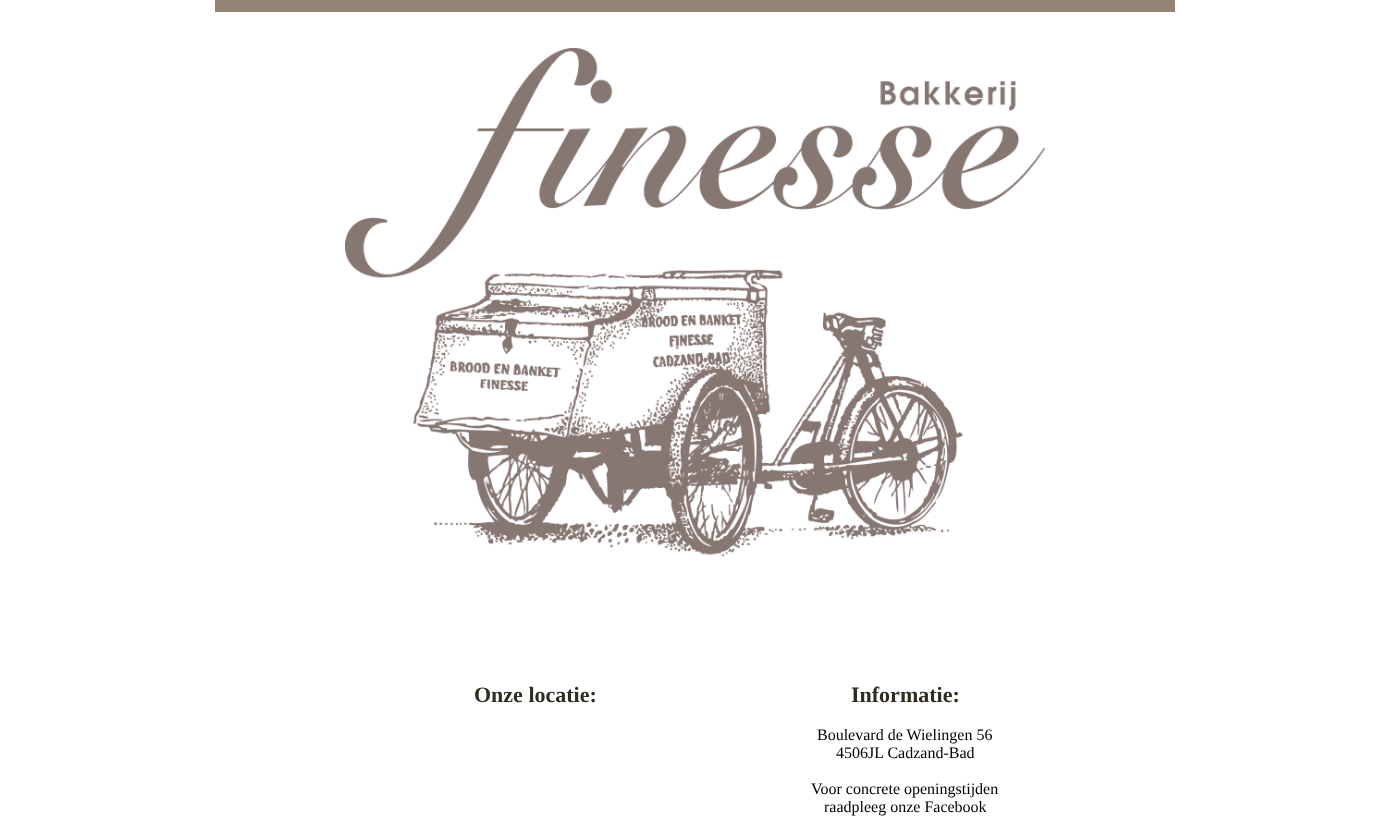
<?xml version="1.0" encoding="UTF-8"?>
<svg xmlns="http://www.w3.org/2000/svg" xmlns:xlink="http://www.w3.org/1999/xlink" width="1390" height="822">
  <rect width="100%" height="100%" fill="#ffffff" />
  <rect x="215" width="960" height="12" fill="#938576" />
  <image x="345" y="48" width="700" height="509" xlink:href="image1.png" />
  <text x="474" y="702" style="font-family: Liberation Serif; font-size: 22px; font-weight: bold; fill: #302d20">Onze locatie:</text>
  <text x="851" y="702" style="font-family: Liberation Serif; font-size: 22px; font-weight: bold; fill: #302d20">Informatie:</text>
  <text x="817" y="740" style="font-family: Liberation Serif; font-size: 16px; fill: #000000">Boulevard de Wielingen 56</text>
  <text x="836" y="758" style="font-family: Liberation Serif; font-size: 16px; fill: #000000">4506JL Cadzand-Bad</text>
  <text x="811" y="794" style="font-family: Liberation Serif; font-size: 16px; fill: #000000">Voor concrete openingstijden</text>
  <text x="824" y="812" style="font-family: Liberation Serif; font-size: 16px; fill: #000000">raadpleeg onze Facebook</text>
</svg>
